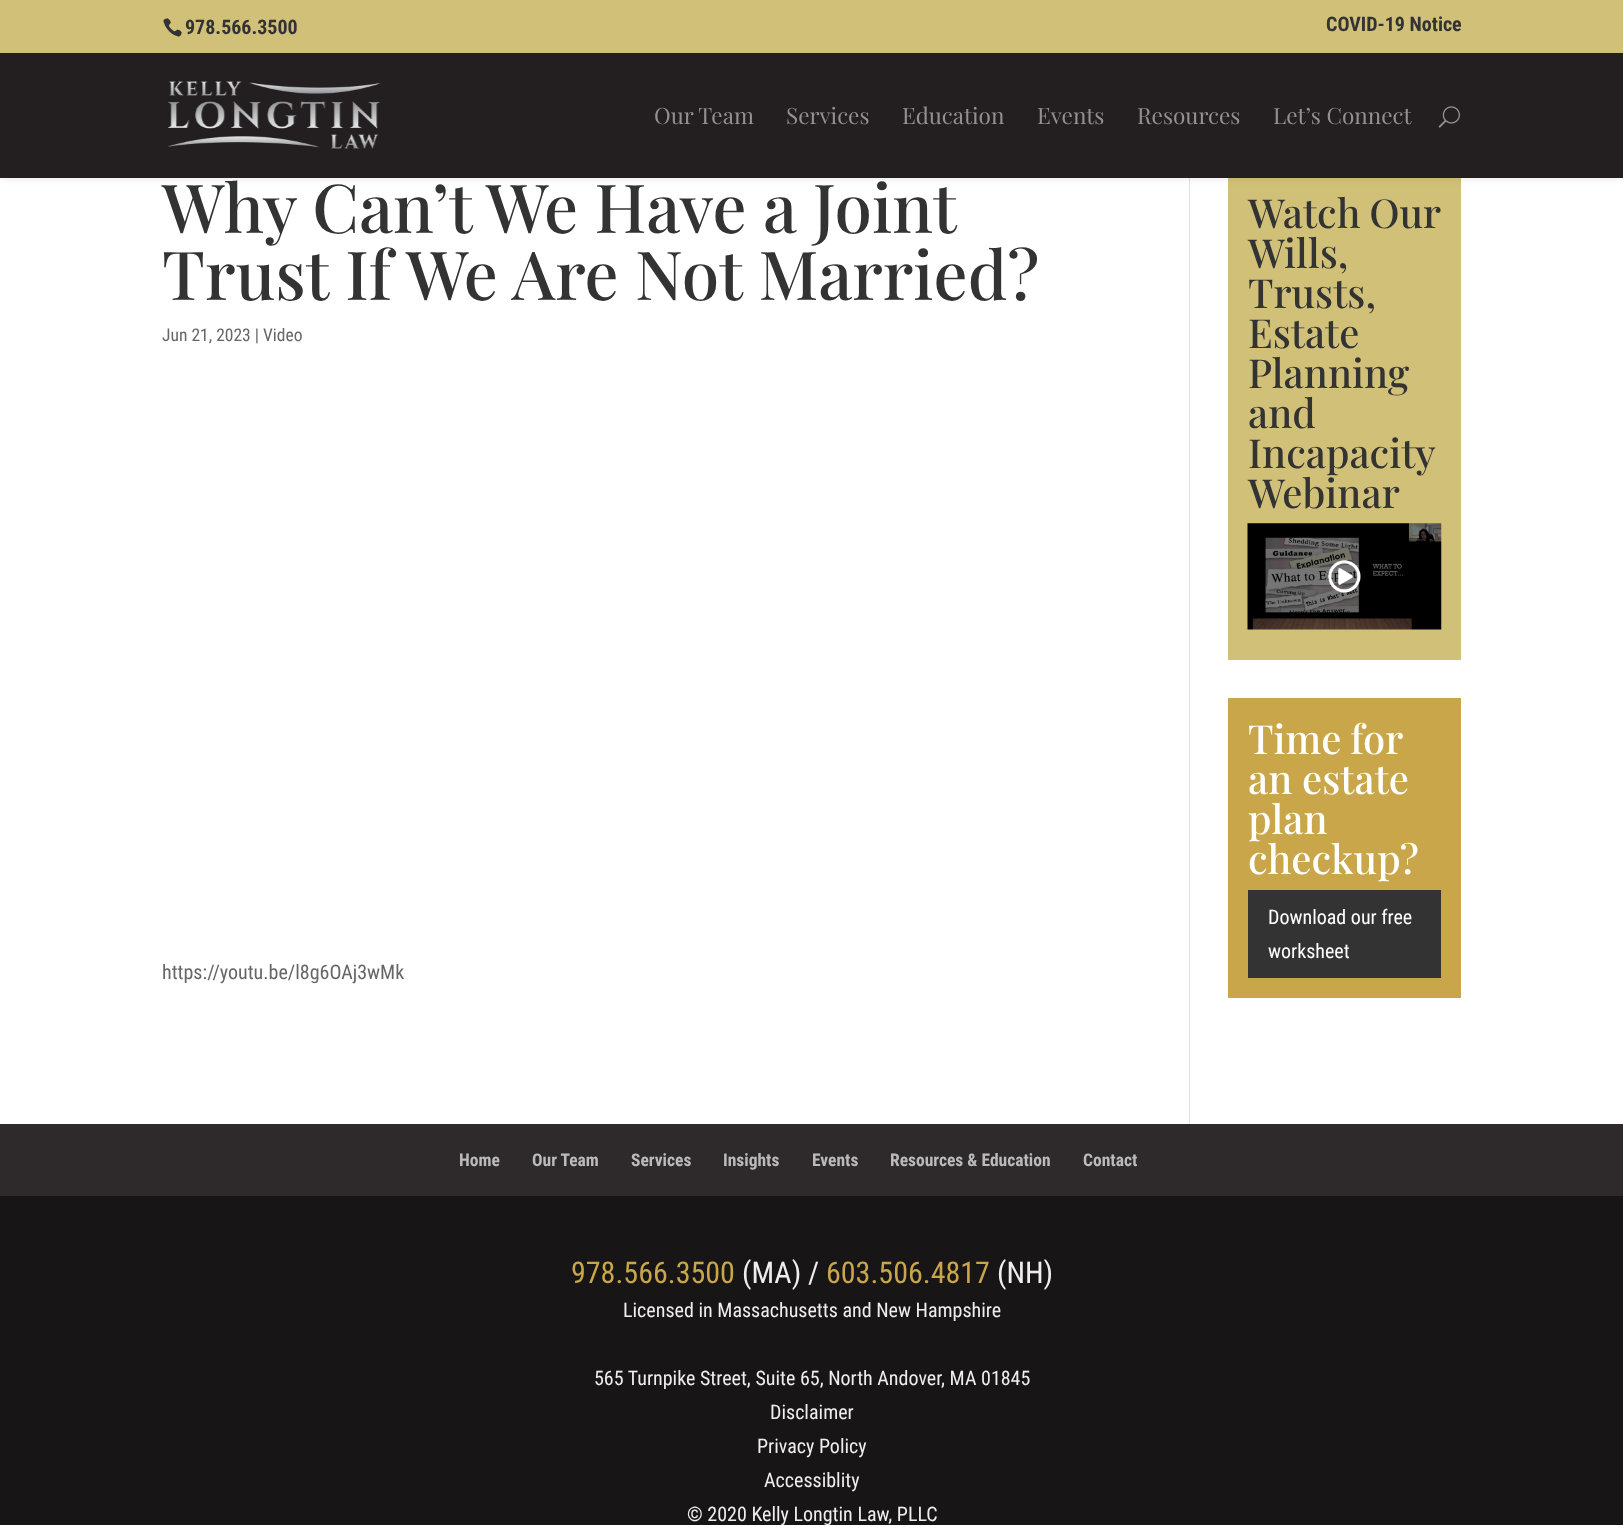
<?xml version="1.0" encoding="UTF-8"?>
<svg xmlns="http://www.w3.org/2000/svg" xmlns:xlink="http://www.w3.org/1999/xlink" width="1623" height="1525">
  <rect width="100%" height="100%" fill="#ffffff" />
  <rect x="1189" y="178" width="1" height="946" fill="#e2e2e2" />
  <rect x="1228" y="178" width="233" height="482" fill="#d1c178" />
  <rect y="53" width="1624" height="125" fill="#000000" fill-opacity="0.1" filter="blur(4.5px)" />
  <rect width="1623" height="53" fill="#d1c178" />
  <image x="163" y="18" width="19" height="19" xlink:href="image1.png" />
  <rect y="53" width="1623" height="125" fill="#231f20" />
  <image x="167" y="81" width="214" height="68" xlink:href="image2.png" />
  <image x="1438" y="106" width="22" height="22" xlink:href="image3.png" />
  <image x="1247" y="523" width="195" height="107" xlink:href="image4.png" />
  <rect x="1228" y="698" width="233" height="300" fill="#c9a64a" />
  <rect x="1248" y="890" width="193" height="88" fill="#333333" />
  <rect y="1124" width="1623" height="72" fill="#2e2a2b" />
  <rect y="1196" width="1623" height="329" fill="#181516" />
  <text x="185" y="34" style="font-family: Roboto Condensed; font-size: 20px; font-weight: bold; fill: #333333">978.566.3500</text>
  <text x="1326" y="31" style="font-family: Roboto Condensed; font-size: 20px; font-weight: bold; fill: #333333">COVID-19 Notice</text>
  <text x="654" y="124" style="font-family: Playfair Display; font-size: 22.5px; fill: #929091">Our Team</text>
  <text x="786" y="124" style="font-family: Playfair Display; font-size: 22.5px; fill: #929091">Services</text>
  <text x="902" y="124" style="font-family: Playfair Display; font-size: 22.5px; fill: #929091">Education</text>
  <text x="1037" y="124" style="font-family: Playfair Display; font-size: 22.5px; fill: #929091">Events</text>
  <text x="1137" y="124" style="font-family: Playfair Display; font-size: 22.5px; fill: #929091">Resources</text>
  <text x="1273" y="124" style="font-family: Playfair Display; font-size: 22.5px; fill: #929091">Let’s Connect</text>
  <text x="162" y="233" style="font-family: Playfair Display; font-size: 67.5px; font-weight: 500; fill: #333333">Why Can’t We Have a Joint</text>
  <text x="162" y="300" style="font-family: Playfair Display; font-size: 67.5px; font-weight: 500; fill: #333333">Trust If We Are Not Married?</text>
  <text x="162" y="341" style="font-family: Roboto Condensed; font-size: 17.5px; fill: #666666">Jun 21, 2023 | Video</text>
  <text x="162" y="979" style="font-family: Roboto Condensed; font-size: 20px; fill: #666666">https://youtu.be/l8g6OAj3wMk</text>
  <text x="1248" y="228" word-spacing="-1" style="font-family: Playfair Display; font-size: 40px; font-weight: 500; fill: #333333">Watch Our</text>
  <text x="1248" y="268" style="font-family: Playfair Display; font-size: 40px; font-weight: 500; fill: #333333">Wills,</text>
  <text x="1248" y="308" style="font-family: Playfair Display; font-size: 40px; font-weight: 500; fill: #333333">Trusts,</text>
  <text x="1248" y="348" style="font-family: Playfair Display; font-size: 40px; font-weight: 500; fill: #333333">Estate</text>
  <text x="1248" y="388" style="font-family: Playfair Display; font-size: 40px; font-weight: 500; fill: #333333">Planning</text>
  <text x="1248" y="428" style="font-family: Playfair Display; font-size: 40px; font-weight: 500; fill: #333333">and</text>
  <text x="1248" y="468" style="font-family: Playfair Display; font-size: 40px; font-weight: 500; fill: #333333">Incapacity</text>
  <text x="1248" y="508" style="font-family: Playfair Display; font-size: 40px; font-weight: 500; fill: #333333">Webinar</text>
  <text x="1248" y="754" word-spacing="-1" style="font-family: Playfair Display; font-size: 40px; font-weight: 500; fill: #ffffff">Time for</text>
  <text x="1248" y="794" style="font-family: Playfair Display; font-size: 40px; font-weight: 500; fill: #ffffff">an estate</text>
  <text x="1248" y="834" style="font-family: Playfair Display; font-size: 40px; font-weight: 500; fill: #ffffff">plan</text>
  <text x="1248" y="874" style="font-family: Playfair Display; font-size: 40px; font-weight: 500; fill: #ffffff">checkup?</text>
  <text x="1268" y="924" style="font-family: Roboto Condensed; font-size: 20px; fill: #ffffff">Download our free</text>
  <text x="1268" y="958" style="font-family: Roboto Condensed; font-size: 20px; fill: #ffffff">worksheet</text>
  <text x="459" y="1166" style="font-family: Roboto Condensed; font-size: 17.5px; font-weight: bold; fill: #bbbbbb">Home</text>
  <text x="532" y="1166" style="font-family: Roboto Condensed; font-size: 17.5px; font-weight: bold; fill: #bbbbbb">Our Team</text>
  <text x="631" y="1166" style="font-family: Roboto Condensed; font-size: 17.5px; font-weight: bold; fill: #bbbbbb">Services</text>
  <text x="723" y="1166" style="font-family: Roboto Condensed; font-size: 17.5px; font-weight: bold; fill: #bbbbbb">Insights</text>
  <text x="812" y="1166" style="font-family: Roboto Condensed; font-size: 17.5px; font-weight: bold; fill: #bbbbbb">Events</text>
  <text x="890" y="1166" style="font-family: Roboto Condensed; font-size: 17.5px; font-weight: bold; fill: #bbbbbb">Resources &amp; Education</text>
  <text x="1083" y="1166" style="font-family: Roboto Condensed; font-size: 17.5px; font-weight: bold; fill: #bbbbbb">Contact</text>
  <text x="571" y="1283" style="font-family: Roboto Condensed; font-size: 30px; fill: #c9a64a">978.566.3500</text>
  <text x="742" y="1283" style="font-family: Roboto Condensed; font-size: 30px; fill: #eeeeee">(MA) /</text>
  <text x="826" y="1283" style="font-family: Roboto Condensed; font-size: 30px; fill: #c9a64a">603.506.4817</text>
  <text x="997" y="1283" style="font-family: Roboto Condensed; font-size: 30px; fill: #eeeeee">(NH)</text>
  <text x="623" y="1317" style="font-family: Roboto Condensed; font-size: 20px; fill: #eeeeee">Licensed in Massachusetts and New Hampshire</text>
  <text x="594" y="1385" style="font-family: Roboto Condensed; font-size: 20px; fill: #eeeeee">565 Turnpike Street, Suite 65, North Andover, MA 01845</text>
  <text x="770" y="1419" style="font-family: Roboto Condensed; font-size: 20px; fill: #eeeeee">Disclaimer</text>
  <text x="757" y="1453" style="font-family: Roboto Condensed; font-size: 20px; fill: #eeeeee">Privacy Policy</text>
  <text x="764" y="1487" style="font-family: Roboto Condensed; font-size: 20px; fill: #eeeeee">Accessiblity</text>
  <text x="687" y="1521" style="font-family: Roboto Condensed; font-size: 20px; fill: #eeeeee">© 2020 Kelly Longtin Law, PLLC</text>
</svg>
